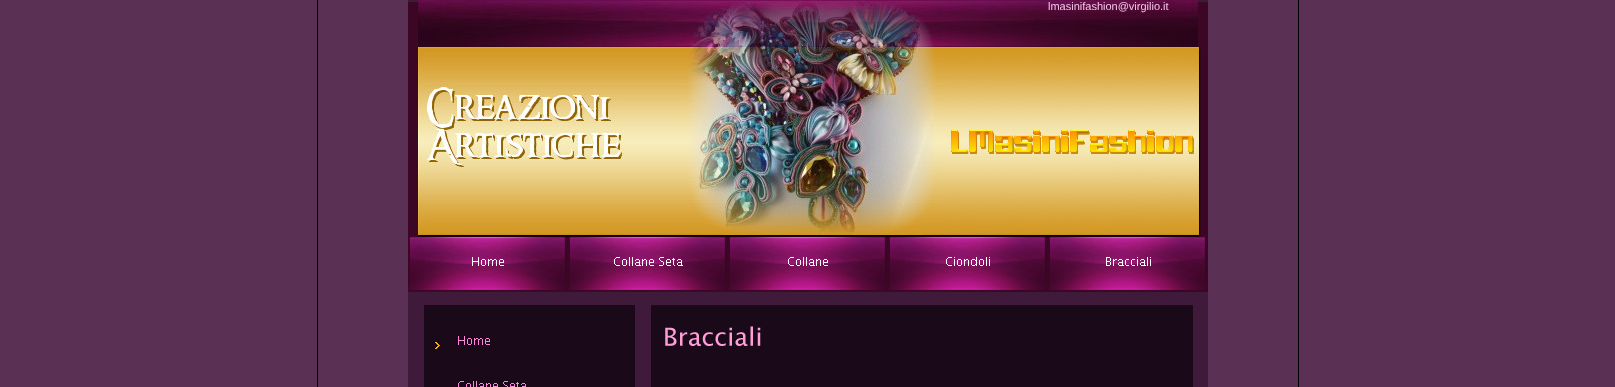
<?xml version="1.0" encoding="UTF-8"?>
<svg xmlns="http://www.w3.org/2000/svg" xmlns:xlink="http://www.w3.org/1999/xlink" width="1615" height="387">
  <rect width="100%" height="100%" fill="#5a3054" />
  <rect x="408" width="800" height="387" fill="#3f1a3b" />
  <rect x="1298" width="1" height="387" fill="#000000" />
  <rect x="317" width="1" height="387" fill="#000000" />
  <image x="407" y="1" width="10" height="234" xlink:href="image1.png" />
  <image x="417" y="0" width="528" height="235" xlink:href="image2.png" />
  <image x="945" y="0" width="263" height="27" xlink:href="image3.png" />
  <image x="945" y="27" width="263" height="20" xlink:href="image4.png" />
  <image x="945" y="47" width="254" height="188" xlink:href="image5.png" />
  <image x="1199" y="47" width="9" height="188" xlink:href="image6.png" />
  <image x="408" y="235" width="800" height="57" xlink:href="image7.png" />
  <image x="409" y="237" width="158" height="53" xlink:href="image8.png" />
  <image x="569" y="237" width="158" height="53" xlink:href="image9.png" />
  <image x="729" y="237" width="158" height="53" xlink:href="image10.png" />
  <image x="889" y="237" width="158" height="53" xlink:href="image11.png" />
  <image x="1049" y="237" width="158" height="53" xlink:href="image12.png" />
  <image x="424" y="305" width="769" height="15" xlink:href="image13.png" />
  <image x="424" y="320" width="237" height="67" xlink:href="image14.png" />
  <image x="435" y="336" width="55" height="13" xlink:href="image15.png" />
  <image x="458" y="381" width="68" height="6" xlink:href="image16.png" />
  <rect x="661" y="320" width="532" height="67" fill="#1a0919" />
  <image x="665" y="326" width="96" height="20" xlink:href="image17.png" />
  <text x="1048" y="10" style="font-family: Liberation Sans; font-size: 11px; fill: #f6c4e9">lmasinifashion@virgilio.it</text>
</svg>
